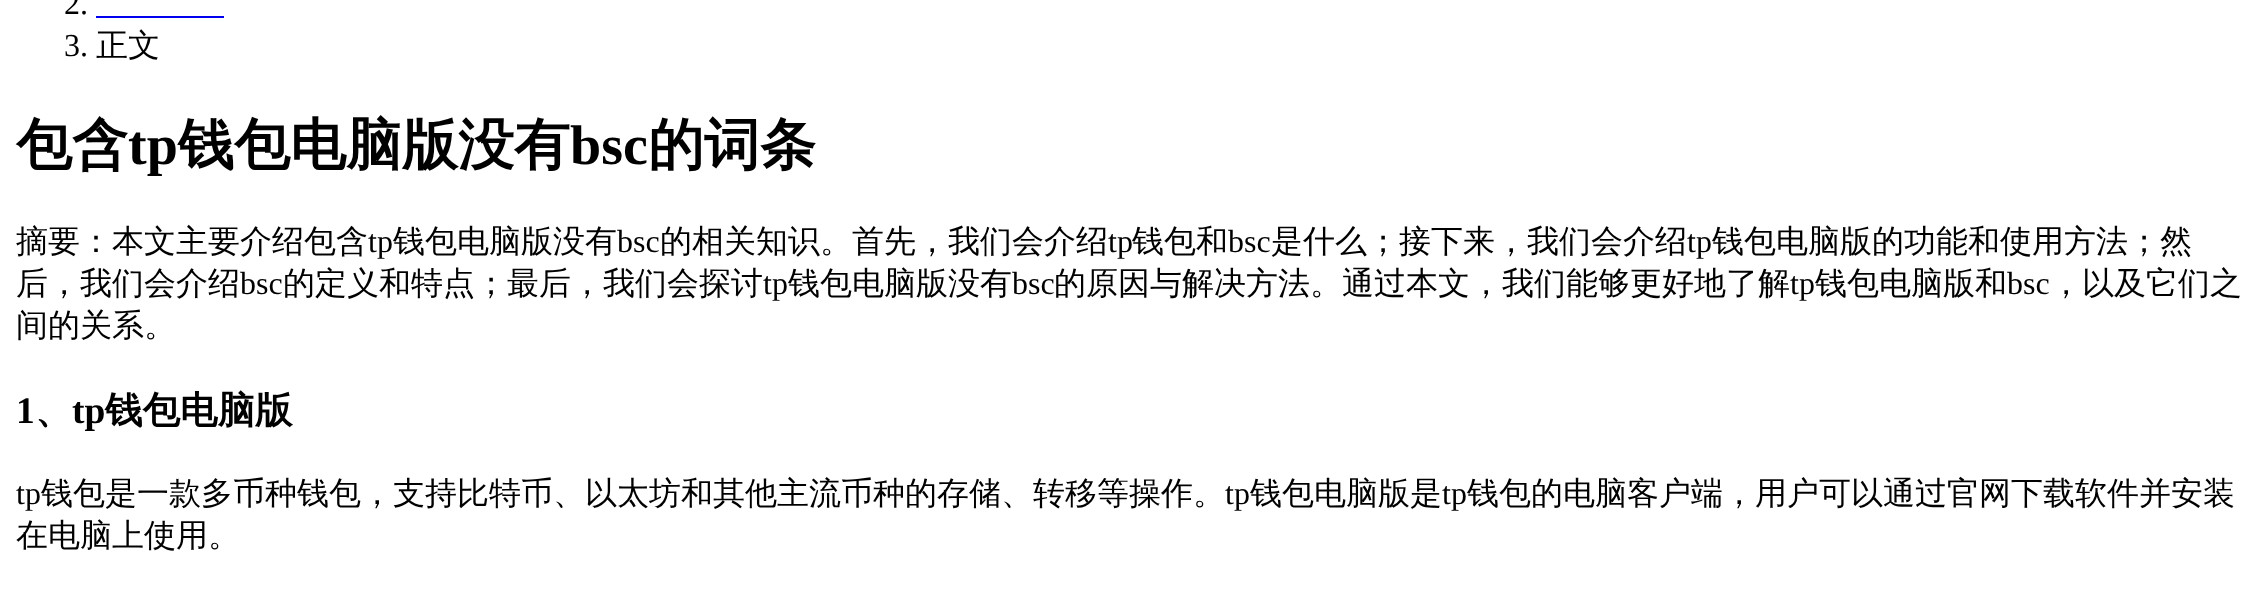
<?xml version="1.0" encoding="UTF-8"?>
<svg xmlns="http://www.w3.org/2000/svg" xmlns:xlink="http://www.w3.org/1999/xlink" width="2264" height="595">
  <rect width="100%" height="100%" fill="#ffffff" />
  <rect x="96" y="16" width="128" height="2" fill="#0000ee" />
  <text x="64" y="14" style="font-family: Liberation Serif; font-size: 32px; fill: #000000">2.</text>
  <text x="64" y="56" style="font-family: Liberation Serif; font-size: 32px; fill: #000000">3.</text>
  <text x="96" y="56" style="font-family: WenQuanYi Zen Hei; font-size: 32px; font-weight: 500; fill: #000000">正文</text>
  <text x="16" y="164" style="font-family: WenQuanYi Zen Hei; font-size: 56px; font-weight: bold; fill: #000000">包含</text>
  <text x="128" y="164" style="font-family: Liberation Serif; font-size: 56px; font-weight: bold; fill: #000000">tp</text>
  <text x="178" y="164" style="font-family: WenQuanYi Zen Hei; font-size: 56px; font-weight: bold; fill: #000000">钱包电脑版没有</text>
  <text x="570" y="164" style="font-family: Liberation Serif; font-size: 56px; font-weight: bold; fill: #000000">bsc</text>
  <text x="648" y="164" style="font-family: WenQuanYi Zen Hei; font-size: 56px; font-weight: bold; fill: #000000">的词条</text>
  <text x="16" y="252" style="font-family: WenQuanYi Zen Hei; font-size: 32px; font-weight: 500; fill: #000000">摘要：本文主要介绍包含</text>
  <text x="368" y="252" style="font-family: Liberation Serif; font-size: 32px; fill: #000000">tp</text>
  <text x="393" y="252" style="font-family: WenQuanYi Zen Hei; font-size: 32px; font-weight: 500; fill: #000000">钱包电脑版没有</text>
  <text x="617" y="252" style="font-family: Liberation Serif; font-size: 32px; fill: #000000">bsc</text>
  <text x="660" y="252" style="font-family: WenQuanYi Zen Hei; font-size: 32px; font-weight: 500; fill: #000000">的相关知识。首先，我们会介绍</text>
  <text x="1108" y="252" style="font-family: Liberation Serif; font-size: 32px; fill: #000000">tp</text>
  <text x="1132" y="252" style="font-family: WenQuanYi Zen Hei; font-size: 32px; font-weight: 500; fill: #000000">钱包和</text>
  <text x="1228" y="252" style="font-family: Liberation Serif; font-size: 32px; fill: #000000">bsc</text>
  <text x="1271" y="252" style="font-family: WenQuanYi Zen Hei; font-size: 32px; font-weight: 500; fill: #000000">是什么；接下来，我们会介绍</text>
  <text x="1687" y="252" style="font-family: Liberation Serif; font-size: 32px; fill: #000000">tp</text>
  <text x="1712" y="252" style="font-family: WenQuanYi Zen Hei; font-size: 32px; font-weight: 500; fill: #000000">钱包电脑版的功能和使用方法；然</text>
  <text x="16" y="294" style="font-family: WenQuanYi Zen Hei; font-size: 32px; font-weight: 500; fill: #000000">后，我们会介绍</text>
  <text x="240" y="294" style="font-family: Liberation Serif; font-size: 32px; fill: #000000">bsc</text>
  <text x="283" y="294" style="font-family: WenQuanYi Zen Hei; font-size: 32px; font-weight: 500; fill: #000000">的定义和特点；最后，我们会探讨</text>
  <text x="763" y="294" style="font-family: Liberation Serif; font-size: 32px; fill: #000000">tp</text>
  <text x="788" y="294" style="font-family: WenQuanYi Zen Hei; font-size: 32px; font-weight: 500; fill: #000000">钱包电脑版没有</text>
  <text x="1012" y="294" style="font-family: Liberation Serif; font-size: 32px; fill: #000000">bsc</text>
  <text x="1054" y="294" style="font-family: WenQuanYi Zen Hei; font-size: 32px; font-weight: 500; fill: #000000">的原因与解决方法。通过本文，我们能够更好地了解</text>
  <text x="1790" y="294" style="font-family: Liberation Serif; font-size: 32px; fill: #000000">tp</text>
  <text x="1815" y="294" style="font-family: WenQuanYi Zen Hei; font-size: 32px; font-weight: 500; fill: #000000">钱包电脑版和</text>
  <text x="2007" y="294" style="font-family: Liberation Serif; font-size: 32px; fill: #000000">bsc</text>
  <text x="2050" y="294" style="font-family: WenQuanYi Zen Hei; font-size: 32px; font-weight: 500; fill: #000000">，以及它们之</text>
  <text x="16" y="336" style="font-family: WenQuanYi Zen Hei; font-size: 32px; font-weight: 500; fill: #000000">间的关系。</text>
  <text x="16" y="423" style="font-family: Liberation Serif; font-size: 37.5px; font-weight: bold; fill: #000000">1</text>
  <text x="35" y="423" style="font-family: WenQuanYi Zen Hei; font-size: 37.5px; font-weight: bold; fill: #000000">、</text>
  <text x="72" y="423" style="font-family: Liberation Serif; font-size: 37.5px; font-weight: bold; fill: #000000">tp</text>
  <text x="105" y="423" style="font-family: WenQuanYi Zen Hei; font-size: 37.5px; font-weight: bold; fill: #000000">钱包电脑版</text>
  <text x="16" y="504" style="font-family: Liberation Serif; font-size: 32px; fill: #000000">tp</text>
  <text x="41" y="504" style="font-family: WenQuanYi Zen Hei; font-size: 32px; font-weight: 500; fill: #000000">钱包是一款多币种钱包，支持比特币、以太坊和其他主流币种的存储、转移等操作。</text>
  <text x="1225" y="504" style="font-family: Liberation Serif; font-size: 32px; fill: #000000">tp</text>
  <text x="1250" y="504" style="font-family: WenQuanYi Zen Hei; font-size: 32px; font-weight: 500; fill: #000000">钱包电脑版是</text>
  <text x="1442" y="504" style="font-family: Liberation Serif; font-size: 32px; fill: #000000">tp</text>
  <text x="1467" y="504" style="font-family: WenQuanYi Zen Hei; font-size: 32px; font-weight: 500; fill: #000000">钱包的电脑客户端，用户可以通过官网下载软件并安装</text>
  <text x="16" y="546" style="font-family: WenQuanYi Zen Hei; font-size: 32px; font-weight: 500; fill: #000000">在电脑上使用。</text>
</svg>
